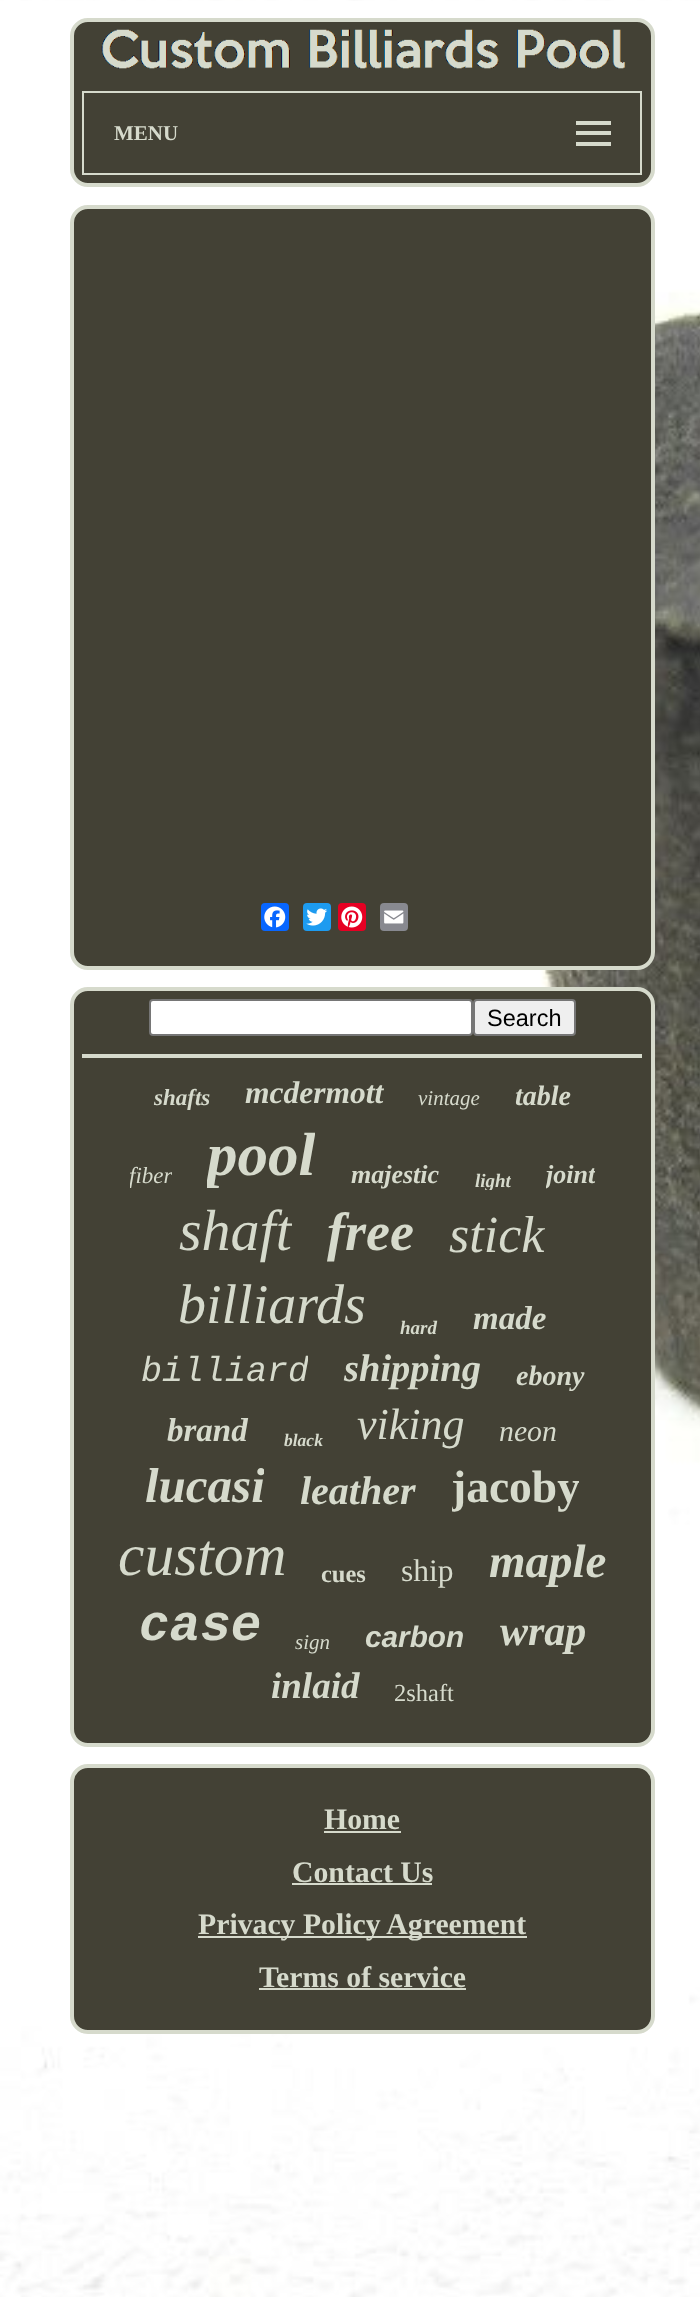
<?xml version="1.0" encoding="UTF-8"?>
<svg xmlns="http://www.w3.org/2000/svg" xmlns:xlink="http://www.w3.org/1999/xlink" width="700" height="2297">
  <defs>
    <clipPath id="clip1"><rect x="130" y="1162" width="42" height="28" /></clipPath>
    <clipPath id="clip2"><rect x="207" y="1120" width="108" height="70" /></clipPath>
    <clipPath id="clip3"><rect x="474" y="1169" width="37" height="21" /></clipPath>
    <clipPath id="clip4"><rect x="546" y="1160" width="49" height="30" /></clipPath>
    <clipPath id="clip5"><rect x="179" y="1199" width="113" height="65" /></clipPath>
    <clipPath id="clip6"><rect x="140" y="1351" width="168" height="40" /></clipPath>
    <clipPath id="clip7"><rect x="145" y="1458" width="119" height="56" /></clipPath>
    <clipPath id="clip8"><rect x="452" y="1461" width="127" height="53" /></clipPath>
  </defs>
  <rect width="100%" height="100%" fill="#ffffff" />
  <image x="0" y="0" width="700" height="2297" xlink:href="image1.png" />
  <rect x="72" y="20" width="581" height="165" rx="16" fill="#434135" stroke="#d6dacc" stroke-width="4" />
  <image x="101" y="29" width="525" height="40" xlink:href="image2.png" />
  <rect x="83" y="92" width="558" height="82" fill="none" stroke="#d6dacc" stroke-width="2" />
  <rect x="576" y="121" width="35" height="4" fill="#d6dacc" />
  <rect x="576" y="131" width="35" height="4" fill="#d6dacc" />
  <rect x="576" y="142" width="35" height="4" fill="#d6dacc" />
  <rect x="72" y="207" width="581" height="761" rx="16" fill="#434135" stroke="#d6dacc" stroke-width="4" />
  <rect x="261" y="903" width="28" height="28" rx="4" fill="#0866ff" />
  <image x="264" y="906" width="22" height="22" xlink:href="image3.png" />
  <rect x="303" y="903" width="28" height="28" rx="4" fill="#1d9bf0" />
  <image x="306" y="908" width="22" height="18" xlink:href="image4.png" />
  <rect x="338" y="903" width="28" height="28" rx="4" fill="#e60023" />
  <image x="341" y="906" width="22" height="22" xlink:href="image5.png" />
  <rect x="380" y="903" width="28" height="28" rx="4" fill="#888990" />
  <image x="384" y="910" width="20" height="14" xlink:href="image6.png" />
  <rect x="72" y="989" width="581" height="756" rx="16" fill="#434135" stroke="#d6dacc" stroke-width="4" />
  <rect x="150" y="1000" width="322" height="35" rx="3" fill="#ffffff" stroke="#767676" stroke-width="2" />
  <rect x="474" y="1000" width="101" height="35" rx="3" fill="#efefef" stroke="#767676" stroke-width="2" />
  <rect x="82" y="1054" width="560" height="4" fill="#d6dacc" />
  <rect x="72" y="1766" width="581" height="266" rx="16" fill="#434135" stroke="#d6dacc" stroke-width="4" />
  <rect x="324" y="1831" width="77" height="2" fill="#d6dacc" />
  <rect x="292" y="1883" width="140" height="2" fill="#d6dacc" />
  <rect x="198" y="1936" width="329" height="2" fill="#d6dacc" />
  <rect x="259" y="1988" width="207" height="2" fill="#d6dacc" />
  <text x="114" y="140" style="font-family: Liberation Serif; font-size: 21px; font-weight: bold; fill: #d6dacc">MENU</text>
  <text x="487" y="1026" style="font-family: Liberation Sans; font-size: 23.5px; fill: #000000">Search</text>
  <text x="154" y="1105" style="font-family: Liberation Serif; font-size: 23px; font-weight: bold; font-style: italic; fill: #d6dacc">shafts</text>
  <text x="245" y="1103" style="font-family: Liberation Serif; font-size: 31.5px; font-weight: bold; font-style: italic; fill: #d6dacc">mcdermott</text>
  <text x="418" y="1105" style="font-family: Liberation Serif; font-size: 21px; font-style: italic; fill: #d6dacc">vintage</text>
  <text x="515" y="1105" style="font-family: Liberation Serif; font-size: 28px; font-weight: bold; font-style: italic; fill: #d6dacc">table</text>
  <g clip-path="url(#clip1)">
    <text x="129" y="1183" style="font-family: Liberation Serif; font-size: 23px; font-style: italic; fill: #d6dacc">fiber</text>
  </g>
  <g clip-path="url(#clip2)">
    <text x="207" y="1175" style="font-family: Liberation Serif; font-size: 61px; font-weight: bold; font-style: italic; fill: #d6dacc">pool</text>
  </g>
  <text x="351" y="1183" style="font-family: Liberation Serif; font-size: 26px; font-weight: bold; font-style: italic; fill: #d6dacc">majestic</text>
  <g clip-path="url(#clip3)">
    <text x="475" y="1187" style="font-family: Liberation Serif; font-size: 19px; font-weight: bold; font-style: italic; fill: #d6dacc">light</text>
  </g>
  <g clip-path="url(#clip4)">
    <text x="546" y="1183" style="font-family: Liberation Serif; font-size: 26px; font-weight: bold; font-style: italic; fill: #d6dacc">joint</text>
  </g>
  <g clip-path="url(#clip5)">
    <text x="179" y="1250" style="font-family: Liberation Serif; font-size: 58px; font-style: italic; fill: #d6dacc">shaft</text>
  </g>
  <text x="327" y="1250" style="font-family: Liberation Serif; font-size: 54px; font-weight: bold; font-style: italic; fill: #d6dacc">free</text>
  <text x="449" y="1252" style="font-family: Liberation Serif; font-size: 52px; font-style: italic; fill: #d6dacc">stick</text>
  <text x="178" y="1323" style="font-family: Liberation Serif; font-size: 56px; font-style: italic; fill: #d6dacc">billiards</text>
  <text x="400" y="1334" style="font-family: Liberation Serif; font-size: 19px; font-weight: bold; font-style: italic; fill: #d6dacc">hard</text>
  <text x="473" y="1329" style="font-family: Liberation Serif; font-size: 33px; font-weight: bold; font-style: italic; fill: #d6dacc">made</text>
  <g clip-path="url(#clip6)">
    <text x="141" y="1381" style="font-family: Liberation Mono; font-size: 35px; font-style: italic; fill: #d6dacc">billiard</text>
  </g>
  <text x="344" y="1381" style="font-family: Liberation Serif; font-size: 38.5px; font-weight: bold; font-style: italic; fill: #d6dacc">shipping</text>
  <text x="516" y="1385" style="font-family: Liberation Serif; font-size: 28px; font-weight: bold; font-style: italic; fill: #d6dacc">ebony</text>
  <text x="167" y="1441" style="font-family: Liberation Serif; font-size: 33px; font-weight: bold; font-style: italic; fill: #d6dacc">brand</text>
  <text x="284" y="1446" style="font-family: Liberation Serif; font-size: 17.5px; font-weight: bold; font-style: italic; fill: #d6dacc">black</text>
  <text x="357" y="1439" style="font-family: Liberation Serif; font-size: 44px; font-style: italic; fill: #d6dacc">viking</text>
  <text x="499" y="1441" style="font-family: Liberation Serif; font-size: 29.75px; font-style: italic; fill: #d6dacc">neon</text>
  <g clip-path="url(#clip7)">
    <text x="145" y="1502" style="font-family: Liberation Serif; font-size: 49px; font-weight: bold; font-style: italic; fill: #d6dacc">lucasi</text>
  </g>
  <text x="300" y="1504" style="font-family: Liberation Serif; font-size: 40px; font-weight: bold; font-style: italic; fill: #d6dacc">leather</text>
  <g clip-path="url(#clip8)">
    <text x="451" y="1502" style="font-family: Liberation Serif; font-size: 45.5px; font-weight: bold; fill: #d6dacc">jacoby</text>
  </g>
  <text x="118" y="1575" style="font-family: Liberation Serif; font-size: 59.5px; font-style: italic; fill: #d6dacc">custom</text>
  <text x="321" y="1582" style="font-family: Liberation Serif; font-size: 24.5px; font-weight: bold; fill: #d6dacc">cues</text>
  <text x="401" y="1581" style="font-family: Liberation Serif; font-size: 31.5px; fill: #d6dacc">ship</text>
  <text x="489" y="1577" style="font-family: Liberation Serif; font-size: 47px; font-weight: bold; font-style: italic; fill: #d6dacc">maple</text>
  <text x="139" y="1640" style="font-family: Liberation Mono; font-size: 51px; font-weight: bold; font-style: italic; fill: #d6dacc">case</text>
  <text x="295" y="1649" style="font-family: Liberation Serif; font-size: 21px; font-style: italic; fill: #d6dacc">sign</text>
  <text x="365" y="1647" style="font-family: Liberation Sans; font-size: 29.75px; font-weight: bold; font-style: italic; fill: #d6dacc">carbon</text>
  <text x="500" y="1645" style="font-family: Liberation Serif; font-size: 42px; font-weight: bold; font-style: italic; fill: #d6dacc">wrap</text>
  <text x="271" y="1698" style="font-family: Liberation Serif; font-size: 37px; font-weight: bold; font-style: italic; fill: #d6dacc">inlaid</text>
  <text x="394" y="1701" style="font-family: Liberation Serif; font-size: 24.5px; fill: #d6dacc">2shaft</text>
  <text x="324" y="1829" style="font-family: Liberation Serif; font-size: 29.75px; font-weight: bold; fill: #d6dacc">Home</text>
  <text x="292" y="1882" style="font-family: Liberation Serif; font-size: 29.75px; font-weight: bold; fill: #d6dacc">Contact Us</text>
  <text x="198" y="1934" style="font-family: Liberation Serif; font-size: 29.75px; font-weight: bold; fill: #d6dacc">Privacy Policy Agreement</text>
  <text x="259" y="1987" style="font-family: Liberation Serif; font-size: 29.75px; font-weight: bold; fill: #d6dacc">Terms of service</text>
</svg>
